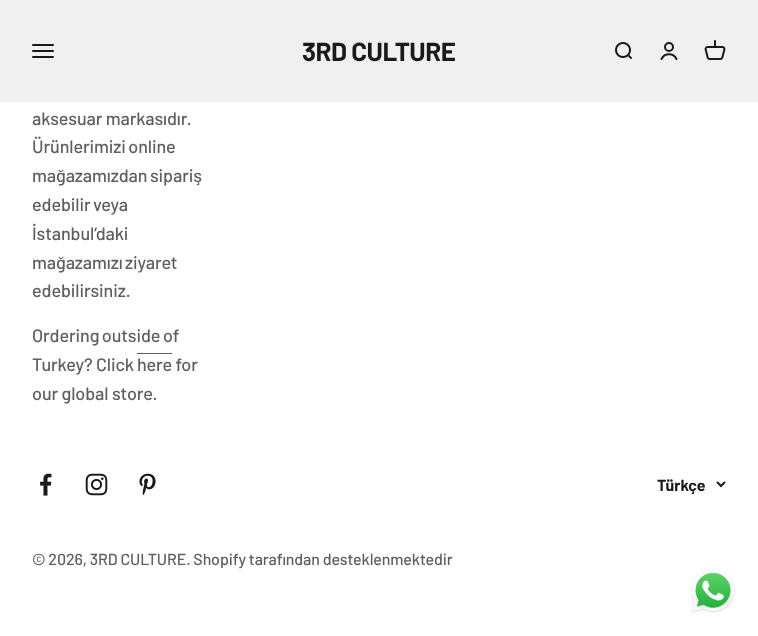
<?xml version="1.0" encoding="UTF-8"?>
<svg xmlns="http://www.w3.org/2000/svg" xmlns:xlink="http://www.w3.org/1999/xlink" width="758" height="636">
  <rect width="100%" height="100%" fill="#ffffff" />
  <rect width="758" height="102" fill="#f0f0f0" />
  <image x="32" y="44" width="22" height="14" xlink:href="image1.png" />
  <image x="615" y="42" width="17" height="17" xlink:href="image2.png" />
  <circle cx="669" cy="47" r="4" fill="none" stroke="#1a1a1a" stroke-width="2" />
  <path d="M 661.5 59 c 3 -6.5 12 -6.5 15 0" fill="none" stroke="#1a1a1a" stroke-width="2" stroke-linecap="round" />
  <image x="704" y="40" width="22" height="20" xlink:href="image3.png" />
  <rect x="137" y="353" width="35" height="1" fill="#5f5f5f" />
  <image x="40" y="473" width="12" height="23" xlink:href="image4.png" />
  <image x="85" y="473" width="23" height="23" xlink:href="image5.png" />
  <image x="139" y="473" width="17" height="23" xlink:href="image6.png" />
  <path d="M 717 482 l 4 4 l 4 -4" fill="none" stroke="#1a1a1a" stroke-width="2" />
  <image x="691" y="568" width="44" height="45" xlink:href="image7.png" />
  <text x="302" y="61" style="font-family: Barlow; font-size: 26px; font-weight: bold; letter-spacing: -0.5px; fill: #1a1a1a">3RD CULTURE</text>
  <text x="32" y="125" style="font-family: Barlow; font-size: 18px; font-weight: 500; letter-spacing: -0.1px; fill: #5f5f5f">aksesuar markasıdır.</text>
  <text x="32" y="153" word-spacing="-1" style="font-family: Barlow; font-size: 18px; font-weight: 500; letter-spacing: -0.1px; fill: #5f5f5f">Ürünlerimizi online</text>
  <text x="32" y="182" word-spacing="-1" style="font-family: Barlow; font-size: 18px; font-weight: 500; letter-spacing: -0.1px; fill: #5f5f5f">mağazamızdan sipariş</text>
  <text x="32" y="211" word-spacing="-1" style="font-family: Barlow; font-size: 18px; font-weight: 500; letter-spacing: -0.1px; fill: #5f5f5f">edebilir veya</text>
  <text x="32" y="240" style="font-family: Barlow; font-size: 18px; font-weight: 500; letter-spacing: -0.1px; fill: #5f5f5f">İstanbul’daki</text>
  <text x="32" y="269" word-spacing="-1" style="font-family: Barlow; font-size: 18px; font-weight: 500; letter-spacing: -0.1px; fill: #5f5f5f">mağazamızı ziyaret</text>
  <text x="32" y="297" style="font-family: Barlow; font-size: 18px; font-weight: 500; letter-spacing: -0.1px; fill: #5f5f5f">edebilirsiniz.</text>
  <text x="32" y="342" word-spacing="-1" style="font-family: Barlow; font-size: 18px; font-weight: 500; letter-spacing: -0.1px; fill: #5f5f5f">Ordering outside of</text>
  <text x="32" y="371" style="font-family: Barlow; font-size: 18px; font-weight: 500; letter-spacing: -0.1px; fill: #5f5f5f">Turkey? Click</text>
  <text x="137" y="371" style="font-family: Barlow; font-size: 18px; font-weight: 500; letter-spacing: -0.1px; fill: #5f5f5f">here for</text>
  <text x="32" y="400" style="font-family: Barlow; font-size: 18px; font-weight: 500; letter-spacing: -0.1px; fill: #5f5f5f">our global store.</text>
  <text x="657" y="491" style="font-family: Barlow; font-size: 16px; font-weight: bold; fill: #1a1a1a">Türkçe</text>
  <text x="32" y="565" word-spacing="-0.25" style="font-family: Barlow; font-size: 16px; font-weight: 500; letter-spacing: -0.1px; fill: #5f5f5f">© 2026, 3RD CULTURE. Shopify tarafından desteklenmektedir</text>
</svg>
